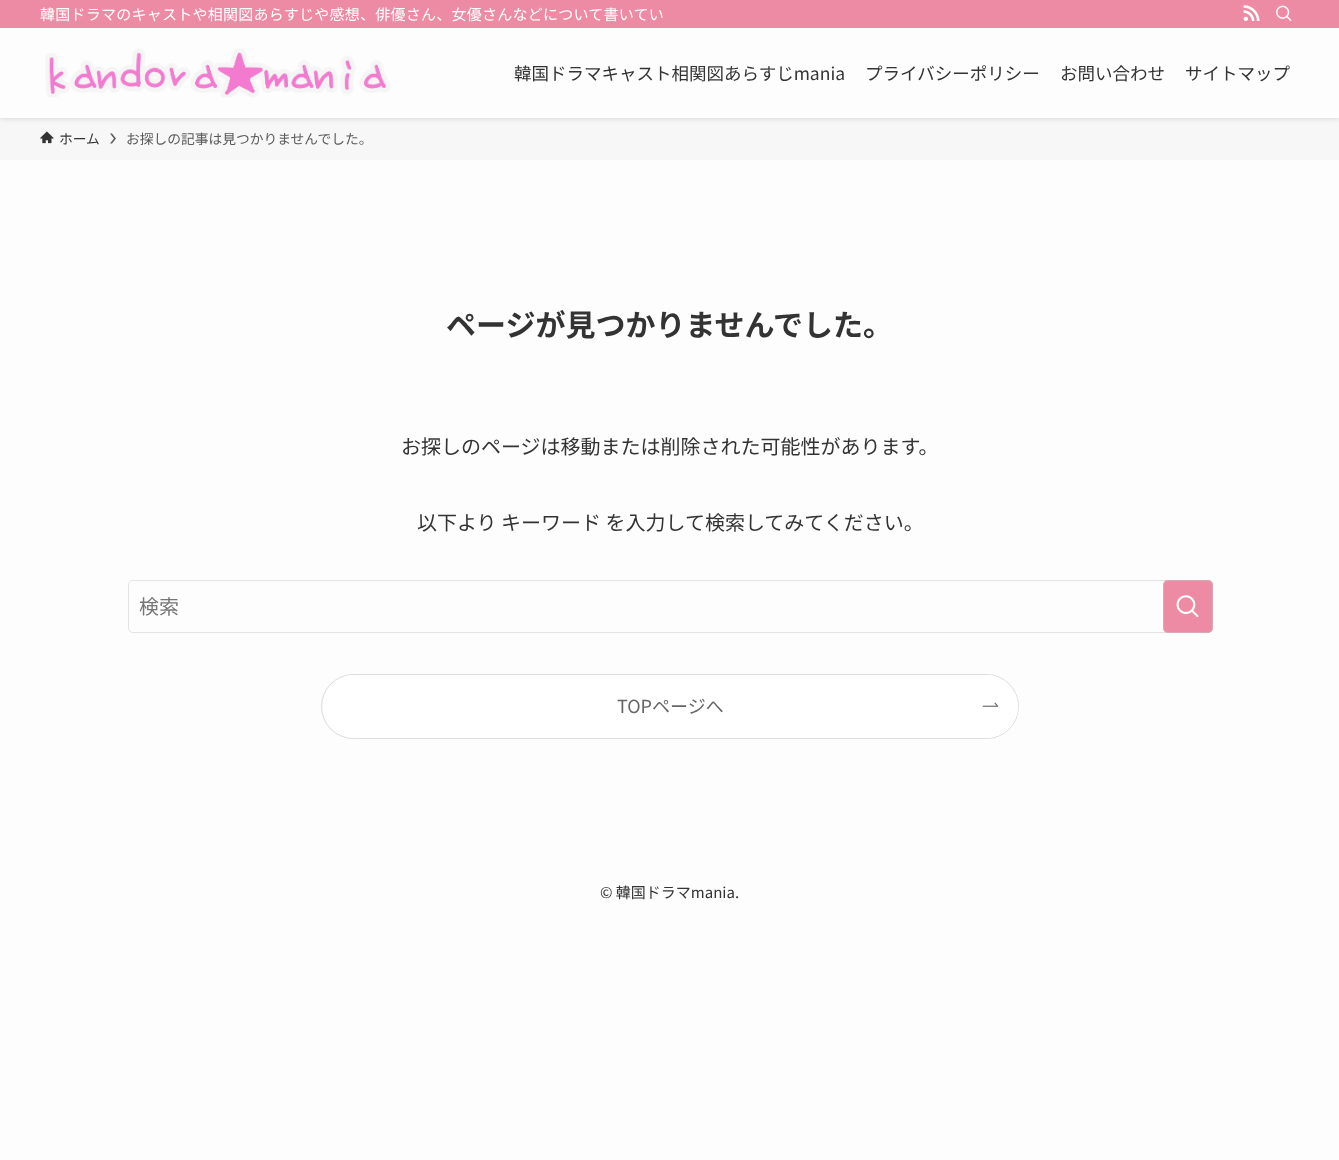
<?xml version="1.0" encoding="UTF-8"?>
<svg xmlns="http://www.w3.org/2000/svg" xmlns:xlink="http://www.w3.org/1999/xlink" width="1339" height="1160">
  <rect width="100%" height="100%" fill="#fdfdfd" />
  <rect y="118" width="1339" height="42" fill="#f7f7f7" />
  <rect y="1" width="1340" height="118" fill="#000000" fill-opacity="0.12" filter="blur(2.5px)" />
  <rect y="28" width="1339" height="90" fill="#fdfdfd" />
  <rect width="1339" height="28" fill="#ed8ba5" />
  <image x="1243" y="5" width="17" height="16" xlink:href="image1.png" />
  <image x="1276" y="5" width="16" height="16" xlink:href="image2.png" />
  <image x="45" y="48" width="346" height="50" xlink:href="image3.png" />
  <image x="40" y="131" width="14" height="13" xlink:href="image4.png" />
  <path d="M 112 133.5 h -2 l 4 5 l -4 5 h 2 l 4 -5 z" fill="#5a5a5a" />
  <rect x="128.5" y="580.5" width="1084" height="52" rx="4.5" fill="none" stroke="#e3e3e3" />
  <rect x="1163" y="580" width="50" height="53" rx="5" fill="#ed8ba5" />
  <rect x="1163.5" y="580.5" width="49" height="52" rx="4.5" fill="none" stroke="#c7c7c7" stroke-opacity="0.5" />
  <image x="1176" y="595" width="23" height="23" xlink:href="image5.png" />
  <rect x="321.5" y="674.5" width="697" height="64" rx="32" fill="none" stroke="#dcdcdc" />
  <rect x="323" y="675" width="695" height="63" rx="31.5" fill="#ffffff" />
  <image x="982" y="702" width="17" height="5" xlink:href="image6.png" />
  <text x="40" y="20" style="font-family: Noto Sans JP; font-size: 15px; letter-spacing: 0.25px; fill: #ffffff">韓国ドラマのキャストや相関図あらすじや感想、俳優さん、女優さんなどについて書いてい</text>
  <text x="514" y="80" style="font-family: Noto Sans JP; font-size: 17.5px; fill: #333333">韓国ドラマキャスト相関図あらすじmania</text>
  <text x="865" y="80" style="font-family: Noto Sans JP; font-size: 17.5px; fill: #333333">プライバシーポリシー</text>
  <text x="1060" y="80" style="font-family: Noto Sans JP; font-size: 17.5px; fill: #333333">お問い合わせ</text>
  <text x="1185" y="80" style="font-family: Noto Sans JP; font-size: 17.5px; fill: #333333">サイトマップ</text>
  <text x="59" y="144" style="font-family: Noto Sans JP; font-size: 13.75px; fill: #333333">ホーム</text>
  <text x="126" y="144" style="font-family: Noto Sans JP; font-size: 13.75px; fill: #5a5a5a">お探しの記事は見つかりませんでした。</text>
  <text x="446" y="336" style="font-family: Noto Sans JP; font-size: 30px; font-weight: bold; fill: #333333">ページが見つかりませんでした。</text>
  <text x="401" y="454" style="font-family: Noto Sans JP; font-size: 20px; fill: #333333">お探しのページは移動または削除された可能性があります。</text>
  <text x="417" y="530" style="font-family: Noto Sans JP; font-size: 20px; fill: #333333">以下より キーワード を入力して検索してみてください。</text>
  <text x="139" y="614" style="font-family: Noto Sans JP; font-size: 20px; fill: #757575">検索</text>
  <text x="617" y="713" style="font-family: Noto Sans JP; font-size: 18px; fill: #666666">TOPページへ</text>
  <text x="600" y="898" style="font-family: Noto Sans JP; font-size: 15px; fill: #333333">© 韓国ドラマmania.</text>
</svg>
